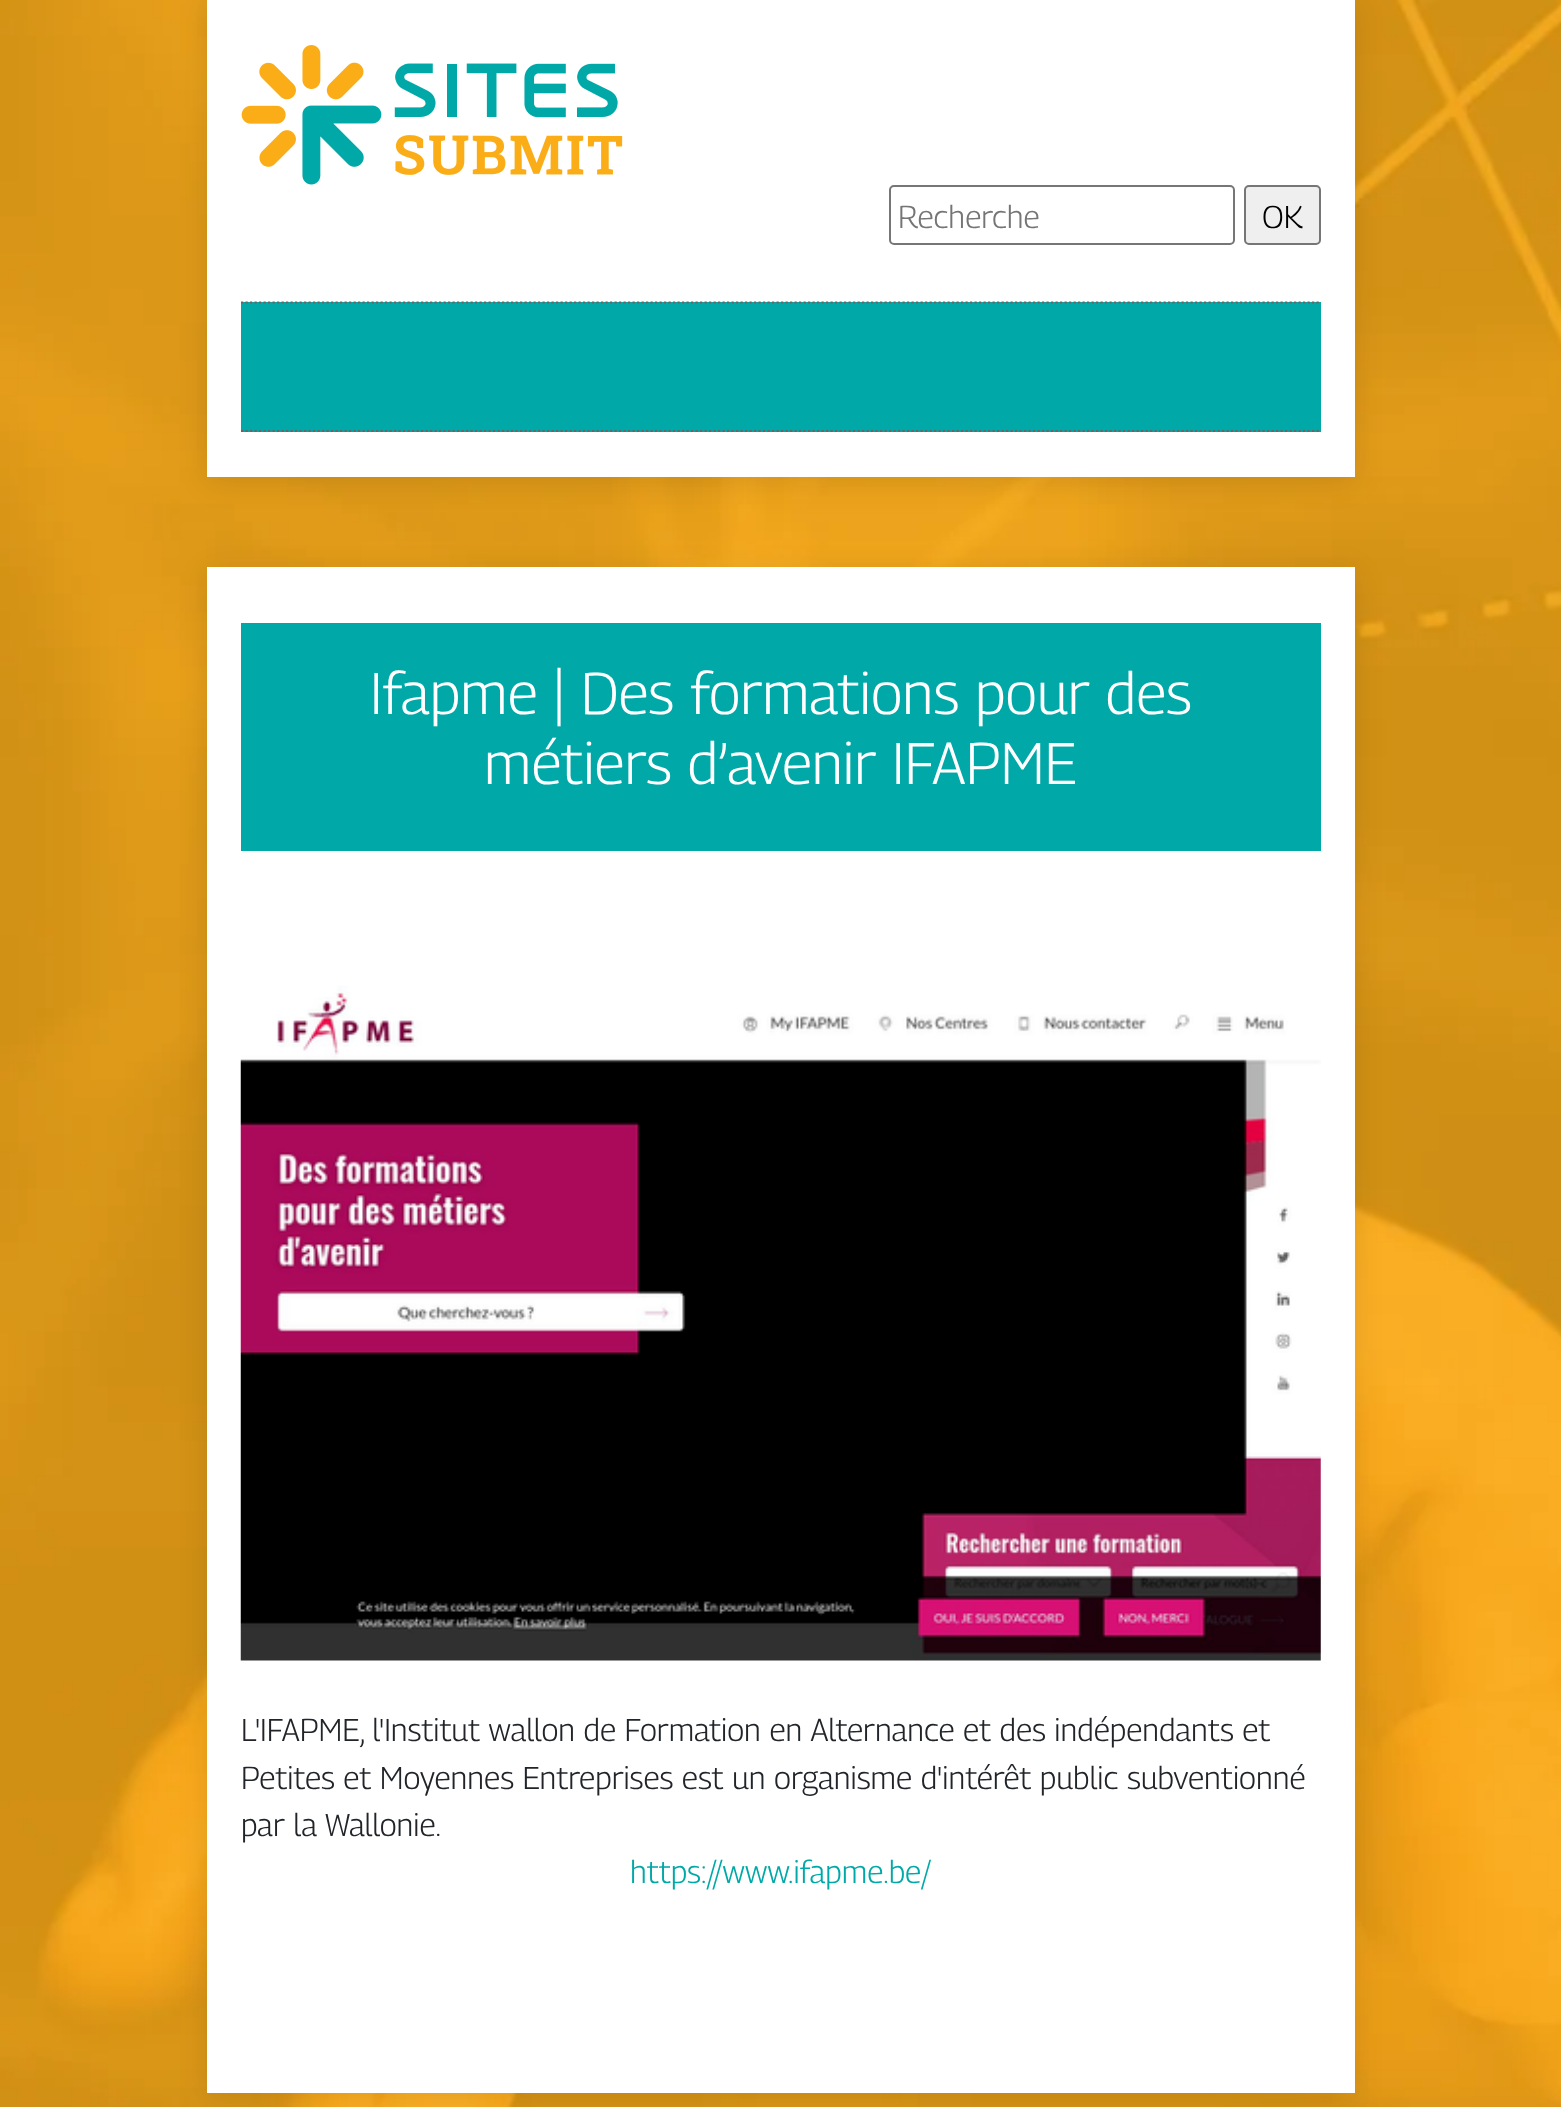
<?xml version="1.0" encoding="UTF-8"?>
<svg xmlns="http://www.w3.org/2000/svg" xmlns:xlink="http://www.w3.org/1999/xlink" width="1561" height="2107">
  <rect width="100%" height="100%" fill="#ffffff" />
  <image x="0" y="0" width="1561" height="2107" xlink:href="image1.png" />
  <rect x="207" y="5" width="1148" height="477" fill="#000000" fill-opacity="0.1" filter="blur(14.5px)" />
  <rect x="207" width="1148" height="477" fill="#ffffff" />
  <image x="241" y="45" width="382" height="140" xlink:href="image2.png" />
  <rect x="890" y="186" width="344" height="58" rx="4" fill="none" stroke="#767676" stroke-width="2" />
  <rect x="1245" y="186" width="75" height="58" rx="4" fill="#efefef" stroke="#767676" stroke-width="2" />
  <rect x="241" y="302" width="1080" height="130" fill="#00a8a8" />
  <path d="M 241 302.5 h 1080" fill="none" stroke="#666666" stroke-width="2.2" stroke-dasharray="2.25 2.25" />
  <path d="M 241 431 h 1080" fill="none" stroke="#666666" stroke-width="2.2" stroke-dasharray="2.25 2.25" />
  <rect x="207" y="572" width="1148" height="1525" fill="#000000" fill-opacity="0.1" filter="blur(14.5px)" />
  <rect x="207" y="567" width="1148" height="1526" fill="#ffffff" />
  <rect x="241" y="623" width="1080" height="228" fill="#00a8a8" />
  <image x="240" y="985" width="1081" height="676" xlink:href="image3.png" />
  <text x="898" y="228" style="font-family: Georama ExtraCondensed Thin; font-size: 31.5px; font-weight: 100; fill: #757575">Recherche</text>
  <text x="1262" y="228" style="font-family: Georama ExtraCondensed Thin; font-size: 31.5px; font-weight: 100; fill: #000000">OK</text>
  <text x="370" y="714" style="font-family: Georama ExtraCondensed Thin; font-size: 58.5px; font-weight: 100; fill: #ffffff">Ifapme | Des formations pour des</text>
  <text x="484" y="784" style="font-family: Georama ExtraCondensed Thin; font-size: 58.5px; font-weight: 100; fill: #ffffff">métiers d’avenir IFAPME</text>
  <text x="241" y="1741" style="font-family: Georama ExtraCondensed Thin; font-size: 31.5px; font-weight: 100; fill: #212529">L'IFAPME, l'Institut wallon de Formation en Alternance et des indépendants et</text>
  <text x="241" y="1789" style="font-family: Georama ExtraCondensed Thin; font-size: 31.5px; font-weight: 100; fill: #212529">Petites et Moyennes Entreprises est un organisme d'intérêt public subventionné</text>
  <text x="241" y="1836" style="font-family: Georama ExtraCondensed Thin; font-size: 31.5px; font-weight: 100; fill: #212529">par la Wallonie.</text>
  <text x="630" y="1883" style="font-family: Georama ExtraCondensed Thin; font-size: 31.5px; font-weight: 100; fill: #00a8a8">https://www.ifapme.be/</text>
</svg>
